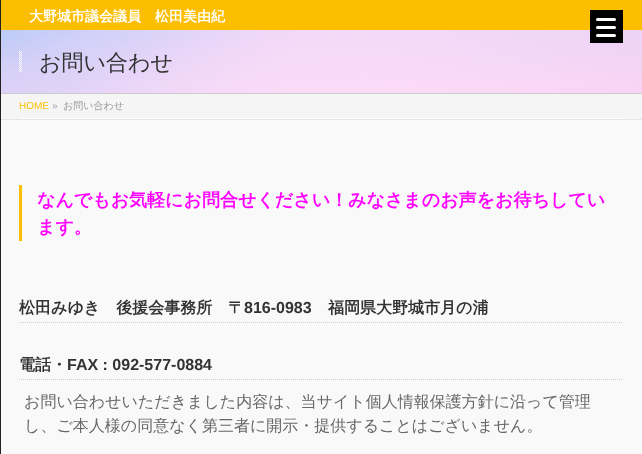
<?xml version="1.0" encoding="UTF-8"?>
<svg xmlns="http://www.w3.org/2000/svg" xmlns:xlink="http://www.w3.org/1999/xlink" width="642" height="454">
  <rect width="100%" height="100%" fill="#f9f9f9" />
  <rect y="93" width="642" height="1" fill="#cccccc" />
  <rect y="119" width="642" height="1" fill="#e5e5e5" />
  <rect width="1" height="454" fill="#212121" />
  <rect x="1" width="641" height="30" fill="#fbbe00" />
  <image x="1" y="30" width="641" height="63" xlink:href="image1.png" />
  <image x="19" y="51" width="3" height="21" xlink:href="image2.png" />
  <rect x="1" y="94" width="641" height="25" fill="#f5f5f5" />
  <rect x="19" y="118" width="604" height="1" fill="#ffffff" />
  <rect x="19" y="185" width="3" height="56" fill="#fbbe00" />
  <path d="M 19 322.5 h 604" fill="none" stroke="#cccccc" stroke-dasharray="1 1" />
  <path d="M 19 379.5 h 604" fill="none" stroke="#cccccc" stroke-dasharray="1 1" />
  <rect x="590" y="10" width="33" height="33" fill="#000000" />
  <rect x="596" y="26" width="20" height="3" rx="1.5" fill="#ffffff" />
  <rect x="596" y="18" width="20" height="3" rx="1.5" fill="#ffffff" />
  <rect x="596" y="34" width="20" height="3" rx="1.5" fill="#ffffff" />
  <text x="29" y="21" style="font-family: WenQuanYi Zen Hei; font-size: 14px; font-weight: bold; fill: #ffffff">大野城市議会議員　松田美由紀</text>
  <text x="39" y="70" style="font-family: WenQuanYi Zen Hei; font-size: 22px; font-weight: 500; fill: #333333">お問い合わせ</text>
  <text x="19" y="109" style="font-family: Liberation Sans; font-size: 10px; fill: #fbbe00">HOME</text>
  <text x="52" y="109" style="font-family: Liberation Sans; font-size: 10px; fill: #999999">»</text>
  <text x="63" y="109" style="font-family: WenQuanYi Zen Hei; font-size: 10px; font-weight: 500; fill: #999999">お問い合わせ</text>
  <text x="37" y="206" style="font-family: WenQuanYi Zen Hei; font-size: 18px; font-weight: bold; fill: #ff00ff">なんでもお気軽にお問合せください！みなさまのお声をお待ちしてい</text>
  <text x="37" y="233" style="font-family: WenQuanYi Zen Hei; font-size: 18px; font-weight: bold; fill: #ff00ff">ます。</text>
  <text x="19" y="313" style="font-family: WenQuanYi Zen Hei; font-size: 16px; font-weight: bold; fill: #333333">松田みゆき　後援会事務所　〒</text>
  <text x="244" y="313" style="font-family: Liberation Sans; font-size: 16px; font-weight: bold; fill: #333333">816-0983</text>
  <text x="328" y="313" style="font-family: WenQuanYi Zen Hei; font-size: 16px; font-weight: bold; fill: #333333">福岡県大野城市月の浦</text>
  <text x="19" y="370" style="font-family: WenQuanYi Zen Hei; font-size: 16px; font-weight: bold; fill: #333333">電話・</text>
  <text x="67" y="370" style="font-family: Liberation Sans; font-size: 16px; font-weight: bold; fill: #333333">FAX : 092-577-0884</text>
  <text x="24" y="407" style="font-family: WenQuanYi Zen Hei; font-size: 16px; font-weight: 500; fill: #666666">お問い合わせいただきました内容は、当サイト個人情報保護方針に沿って管理</text>
  <text x="24" y="431" style="font-family: WenQuanYi Zen Hei; font-size: 16px; font-weight: 500; fill: #666666">し、ご本人様の同意なく第三者に開示・提供することはございません。</text>
</svg>
